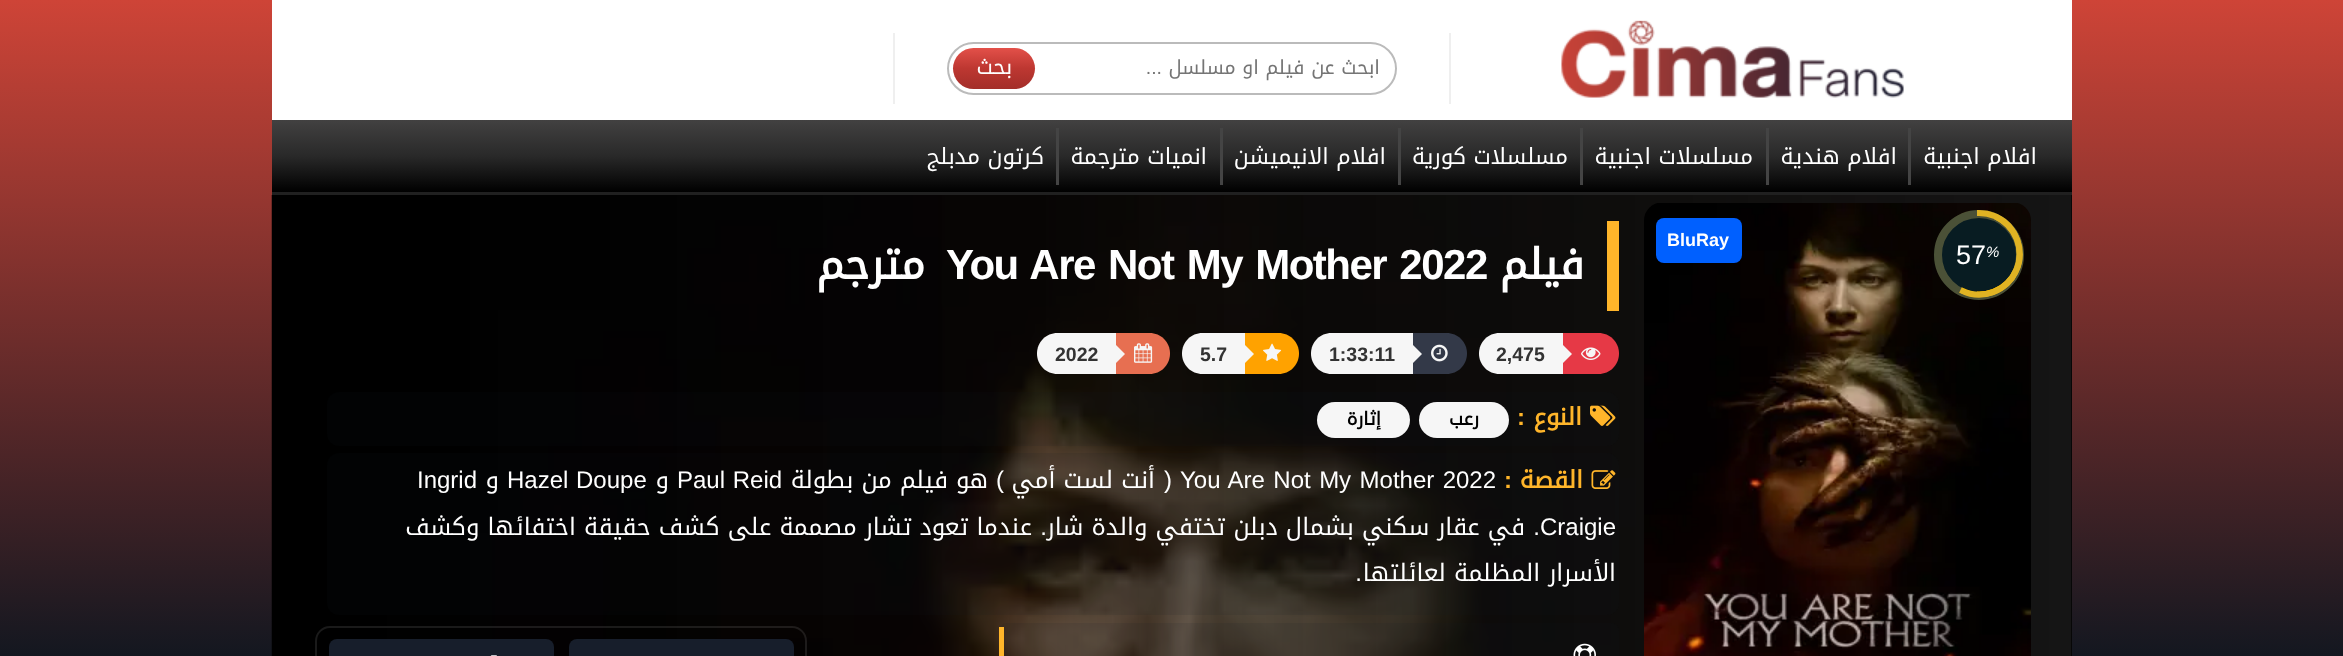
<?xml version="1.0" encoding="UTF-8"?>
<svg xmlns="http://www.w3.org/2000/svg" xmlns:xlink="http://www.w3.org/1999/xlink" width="2343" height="656">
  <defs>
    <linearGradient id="g1" gradientUnits="userSpaceOnUse" x1="1172" y1="0" x2="1172" y2="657"><stop offset="0" stop-color="#ce4437" /><stop offset="1" stop-color="#131720" /></linearGradient>
    <linearGradient id="g2" gradientUnits="userSpaceOnUse" x1="994" y1="48" x2="994" y2="89"><stop offset="0" stop-color="#e35049" /><stop offset="0.5" stop-color="#bd3731" /><stop offset="1" stop-color="#a32e29" /></linearGradient>
    <linearGradient id="g3" gradientUnits="userSpaceOnUse" x1="1172" y1="120" x2="1172" y2="192"><stop offset="0" stop-color="#424141" /><stop offset="0.5" stop-color="#292929" /><stop offset="1" stop-color="#000000" /></linearGradient>
    <clipPath id="clip1"><path d="M 2000 312 l -41 -19 l 38.5 -81.5 l 41 19 z" /></clipPath>
    <clipPath id="clip2"><rect x="1977" y="210" width="45" height="87" /></clipPath>
  </defs>
  <rect width="100%" height="100%" fill="#ffffff" />
  <rect width="2343" height="656" fill="url(#g1)" />
  <rect x="272" width="1800" height="120" fill="#ffffff" />
  <image x="1561" y="20" width="343" height="78" xlink:href="image1.png" />
  <rect x="1449" y="33" width="2" height="71" fill="#efefef" />
  <rect x="893" y="33" width="2" height="71" fill="#efefef" />
  <rect x="948" y="43" width="448" height="51" rx="25.5" fill="none" stroke="#bbbbbb" stroke-width="2" />
  <rect x="953" y="48" width="82" height="41" rx="20.5" fill="url(#g2)" />
  <rect x="272" y="120" width="1800" height="72" fill="url(#g3)" />
  <rect x="1908" y="128" width="3" height="57" fill="#444444" />
  <rect x="1766" y="128" width="3" height="57" fill="#444444" />
  <rect x="1580" y="128" width="3" height="57" fill="#444444" />
  <rect x="1398" y="128" width="3" height="57" fill="#444444" />
  <rect x="1220" y="128" width="3" height="57" fill="#444444" />
  <rect x="1056" y="128" width="3" height="57" fill="#444444" />
  <rect x="272" y="192" width="1800" height="3" fill="#202020" />
  <rect x="2071" y="195" width="1" height="461" fill="#070707" />
  <image x="271" y="195" width="1800" height="461" xlink:href="image2.png" />
  <image x="1644" y="203" width="387" height="453" xlink:href="image3.png" />
  <rect x="1656" y="218" width="86" height="45" rx="8" fill="#0060ff" />
  <circle cx="1979" cy="255" r="45" fill="#081c22" />
  <g clip-path="url(#clip1)">
    <path d="M 1961.5 290.5 c -20.5 -9.5 -29 -33.5 -19.5 -54 c 9.5 -20.5 34 -29 54.5 -19.5 c 20 9.5 29 34 19.5 54 c -9.5 20.5 -34 29.5 -54.5 19.5 z" fill="none" stroke="#ffbe00" stroke-width="6" />
  </g>
  <g clip-path="url(#clip2)">
    <path d="M 1979 294.5 c -22.5 0 -41 -18 -41 -40.5 c 0 -22.5 18.5 -41 41 -41 c 22.5 0 40.5 18.5 40.5 41 c 0 22.5 -18 40.5 -40.5 40.5 z" fill="none" stroke="#ffbe00" stroke-width="6" />
  </g>
  <rect x="1607" y="221" width="12" height="90" fill="#ffb52a" />
  <path d="M 1563 333 h 35.5 c 11.5 0 20.5 9 20.5 20.5 c 0 11.5 -9 20.5 -20.5 20.5 h -35.5 z" fill="#e63946" />
  <image x="1581" y="347" width="20" height="13" xlink:href="image4.png" />
  <path d="M 1499.5 333 h 63.5 v 41 h -63.5 c -11.5 0 -20.5 -9 -20.5 -20.5 c 0 -11.5 9 -20.5 20.5 -20.5 z" fill="#f6f6f6" />
  <path d="M 1561.5 364.5 v -21 l 10.5 10.5 z" fill="#f6f6f6" />
  <path d="M 1413 333 h 33.5 c 11.5 0 20.5 9 20.5 20.5 c 0 11.5 -9 20.5 -20.5 20.5 h -33.5 z" fill="#333948" />
  <image x="1431" y="344" width="17" height="18" xlink:href="image5.png" />
  <path d="M 1331.5 333 h 81.5 v 41 h -81.5 c -11.5 0 -20.5 -9 -20.5 -20.5 c 0 -11.5 9 -20.5 20.5 -20.5 z" fill="#f6f6f6" />
  <path d="M 1411.5 364.5 v -21 l 10.5 10.5 z" fill="#f6f6f6" />
  <path d="M 1245 333 h 33.5 c 11.5 0 20.5 9 20.5 20.5 c 0 11.5 -9 20.5 -20.5 20.5 h -33.5 z" fill="#ffa200" />
  <image x="1263" y="343" width="19" height="18" xlink:href="image6.png" />
  <path d="M 1202.5 333 h 42.5 v 41 h -42.5 c -11.5 0 -20.5 -9 -20.5 -20.5 c 0 -11.5 9 -20.5 20.5 -20.5 z" fill="#f6f6f6" />
  <path d="M 1243.5 364.5 v -21 l 10.5 10.5 z" fill="#f6f6f6" />
  <path d="M 1116 333 h 33.5 c 11.5 0 20.5 9 20.5 20.5 c 0 11.5 -9 20.5 -20.5 20.5 h -33.5 z" fill="#e76f51" />
  <image x="1134" y="343" width="19" height="20" xlink:href="image7.png" />
  <path d="M 1057.5 333 h 58.5 v 41 h -58.5 c -11.5 0 -20.5 -9 -20.5 -20.5 c 0 -11.5 9 -20.5 20.5 -20.5 z" fill="#f6f6f6" />
  <path d="M 1114.5 364.5 v -21 l 10.5 10.5 z" fill="#f6f6f6" />
  <rect x="327" y="392" width="1292" height="54" rx="12" fill="#171e2b" fill-opacity="0.1" />
  <image x="1590" y="405" width="26" height="21" xlink:href="image8.png" />
  <rect x="1419" y="402" width="90" height="36" rx="18" fill="#f6f6f6" />
  <rect x="1317" y="402" width="93" height="36" rx="18" fill="#f6f6f6" />
  <rect x="327" y="453" width="1292" height="162" rx="12" fill="#171e2b" fill-opacity="0.1" />
  <image x="1591" y="470" width="25" height="19" xlink:href="image9.png" />
  <rect x="999" y="623" width="620" height="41" rx="8" fill="#171e2b" fill-opacity="0.1" />
  <rect x="999" y="627" width="5" height="29" fill="#ffb52a" />
  <image x="1573" y="643" width="23" height="13" xlink:href="image10.png" />
  <rect x="316" y="627" width="490" height="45" rx="14" fill="none" stroke="#ffffff" stroke-opacity="0.1" stroke-width="2" />
  <rect x="569" y="639" width="225" height="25" rx="8" fill="#171e2b" />
  <rect x="329" y="639" width="225" height="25" rx="8" fill="#171e2b" />
  <image x="490" y="655" width="7" height="1" xlink:href="image11.png" />
  <text x="1380" y="74" style="font-family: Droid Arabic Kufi; font-size: 19.5px; direction: rtl; fill: #757575">ابحث عن فيلم او مسلسل</text>
  <text x="1162" y="74" style="font-family: Liberation Sans; font-size: 19.5px; direction: rtl; fill: #757575">...</text>
  <text x="1012" y="74" style="font-family: Droid Arabic Kufi; font-size: 21px; direction: rtl; fill: #ffffff">بحث</text>
  <text x="2037" y="164" style="font-family: Droid Arabic Kufi; font-size: 22.25px; direction: rtl; fill: #ffffff">افلام اجنبية</text>
  <text x="1897" y="164" style="font-family: Droid Arabic Kufi; font-size: 22.25px; direction: rtl; fill: #ffffff">افلام هندية</text>
  <text x="1753" y="164" style="font-family: Droid Arabic Kufi; font-size: 22.25px; direction: rtl; fill: #ffffff">مسلسلات اجنبية</text>
  <text x="1568" y="164" style="font-family: Droid Arabic Kufi; font-size: 22.25px; direction: rtl; fill: #ffffff">مسلسلات كورية</text>
  <text x="1386" y="164" style="font-family: Droid Arabic Kufi; font-size: 22.25px; direction: rtl; fill: #ffffff">افلام الانيميشن</text>
  <text x="1207" y="164" style="font-family: Droid Arabic Kufi; font-size: 22.25px; direction: rtl; fill: #ffffff">انميات مترجمة</text>
  <text x="1044" y="164" style="font-family: Droid Arabic Kufi; font-size: 22.25px; direction: rtl; fill: #ffffff">كرتون مدبلج</text>
  <text x="1667" y="246" style="font-family: Liberation Sans; font-size: 18px; font-weight: bold; fill: #ffffff">BluRay</text>
  <text x="1986" y="257" style="font-family: Liberation Sans; font-size: 15px; font-style: italic; fill: #ffffff">%</text>
  <text x="1956" y="264" style="font-family: Liberation Sans; font-size: 27px; fill: #ffffff">57</text>
  <circle cx="1979" cy="255" r="41" fill="none" stroke="#b2a357" stroke-opacity="0.4" stroke-width="8" />
  <text x="1584" y="279" style="font-family: Droid Arabic Kufi; font-size: 42px; font-weight: bold; letter-spacing: -1.5px; direction: rtl; fill: #ffffff">فيلم</text>
  <text x="946" y="279" word-spacing="3" style="font-family: Liberation Sans; font-size: 42px; font-weight: bold; letter-spacing: -1.5px; fill: #ffffff">You Are Not My Mother 2022</text>
  <text x="925" y="279" style="font-family: Droid Arabic Kufi; font-size: 42px; font-weight: bold; letter-spacing: -1.5px; direction: rtl; fill: #ffffff">مترجم</text>
  <text x="1496" y="361" style="font-family: Liberation Sans; font-size: 19.5px; font-weight: bold; fill: #333333">2,475</text>
  <text x="1329" y="361" style="font-family: Liberation Sans; font-size: 19.5px; font-weight: bold; fill: #333333">1:33:11</text>
  <text x="1200" y="361" style="font-family: Liberation Sans; font-size: 19.5px; font-weight: bold; fill: #333333">5.7</text>
  <text x="1055" y="361" style="font-family: Liberation Sans; font-size: 19.5px; font-weight: bold; fill: #333333">2022</text>
  <text x="1582" y="425" style="font-family: Droid Arabic Kufi; font-size: 24px; font-weight: bold; direction: rtl; fill: #ffb52a">النوع</text>
  <text x="1525" y="425" style="font-family: Liberation Sans; font-size: 24px; font-weight: bold; direction: rtl; fill: #ffb52a">:</text>
  <text x="1479" y="425" style="font-family: Droid Arabic Kufi; font-size: 18px; font-weight: bold; direction: rtl; fill: #000000">رعب</text>
  <text x="1381" y="425" style="font-family: Droid Arabic Kufi; font-size: 18px; font-weight: bold; direction: rtl; fill: #000000">إثارة</text>
  <text x="1583" y="488" style="font-family: Droid Arabic Kufi; font-size: 24px; font-weight: bold; direction: rtl; fill: #ffb52a">القصة</text>
  <text x="1512" y="488" style="font-family: Liberation Sans; font-size: 24px; font-weight: bold; direction: rtl; fill: #ffb52a">:</text>
  <text x="1180" y="488" word-spacing="1.75" style="font-family: Liberation Sans; font-size: 24px; fill: #ffffff">You Are Not My Mother 2022</text>
  <text x="1172" y="488" style="font-family: Liberation Sans; font-size: 24px; direction: rtl; fill: #ffffff">(</text>
  <text x="1155" y="488" style="font-family: Droid Arabic Kufi; font-size: 24px; direction: rtl; fill: #ffffff">أنت لست أمي</text>
  <text x="1004" y="488" style="font-family: Liberation Sans; font-size: 24px; direction: rtl; fill: #ffffff">)</text>
  <text x="988" y="488" style="font-family: Droid Arabic Kufi; font-size: 24px; direction: rtl; fill: #ffffff">هو فيلم من بطولة</text>
  <text x="677" y="488" word-spacing="1" style="font-family: Liberation Sans; font-size: 24px; fill: #ffffff">Paul Reid</text>
  <text x="669" y="488" style="font-family: Droid Arabic Kufi; font-size: 24px; direction: rtl; fill: #ffffff">و</text>
  <text x="507" y="488" word-spacing="1" style="font-family: Liberation Sans; font-size: 24px; fill: #ffffff">Hazel Doupe</text>
  <text x="499" y="488" style="font-family: Droid Arabic Kufi; font-size: 24px; direction: rtl; fill: #ffffff">و</text>
  <text x="417" y="488" style="font-family: Liberation Sans; font-size: 24px; fill: #ffffff">Ingrid</text>
  <text x="1540" y="535" style="font-family: Liberation Sans; font-size: 24px; fill: #ffffff">Craigie</text>
  <text x="1540" y="535" style="font-family: Liberation Sans; font-size: 24px; direction: rtl; fill: #ffffff">.</text>
  <text x="1525" y="535" style="font-family: Droid Arabic Kufi; font-size: 24px; direction: rtl; fill: #ffffff">في عقار سكني بشمال دبلن تختفي والدة شار</text>
  <text x="1047" y="535" style="font-family: Liberation Sans; font-size: 24px; direction: rtl; fill: #ffffff">.</text>
  <text x="1032" y="535" style="font-family: Droid Arabic Kufi; font-size: 24px; direction: rtl; fill: #ffffff">عندما تعود تشار مصممة على كشف حقيقة اختفائها وكشف</text>
  <text x="1616" y="581" style="font-family: Droid Arabic Kufi; font-size: 24px; direction: rtl; fill: #ffffff">الأسرار المظلمة لعائلتها</text>
  <text x="1362" y="581" style="font-family: Liberation Sans; font-size: 24px; direction: rtl; fill: #ffffff">.</text>
</svg>
